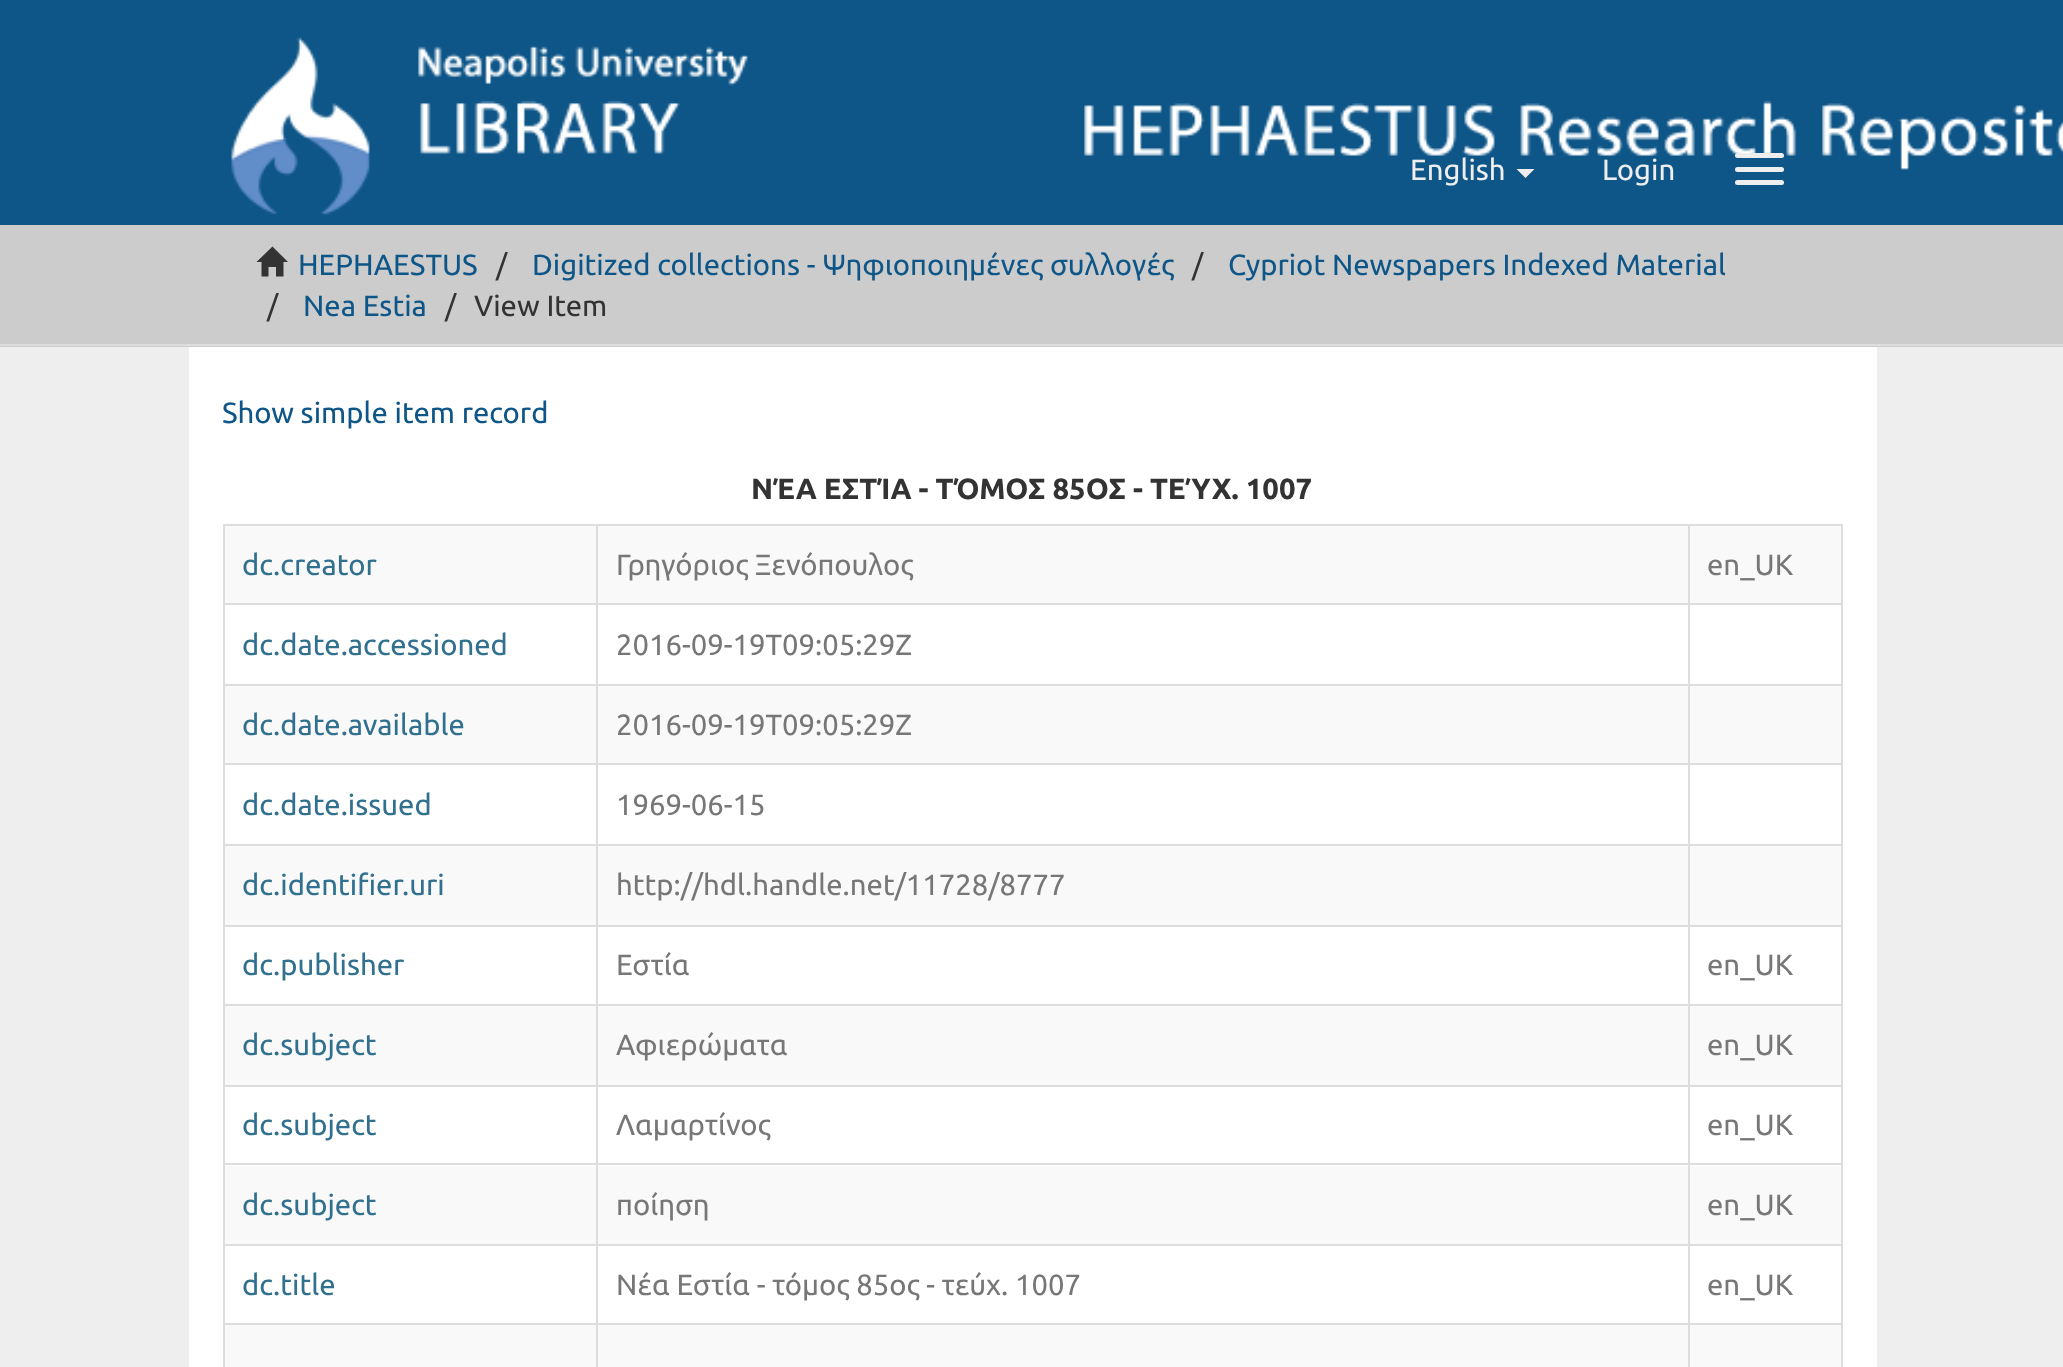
<?xml version="1.0" encoding="UTF-8"?>
<svg xmlns="http://www.w3.org/2000/svg" xmlns:xlink="http://www.w3.org/1999/xlink" width="2063" height="1367">
  <rect width="100%" height="100%" fill="#eeeeee" />
  <rect width="2063" height="225" fill="#0e5688" />
  <image x="231" y="37" width="1832" height="178" xlink:href="image1.png" />
  <path d="M 1516.5 169 h 18 l -9 9 z" fill="#eeeeee" />
  <rect x="1735" y="153" width="49" height="5" rx="2.5" fill="#eeeeee" />
  <rect x="1735" y="167" width="49" height="5" rx="2.5" fill="#eeeeee" />
  <rect x="1735" y="180" width="49" height="5" rx="2.5" fill="#eeeeee" />
  <rect y="225" width="2063" height="122" fill="#cccccc" />
  <rect y="344" width="2063" height="2" fill="#dddddd" />
  <path d="M 256.5 262 l 16 -15.5 l 15.5 15.5 h -4.5 v 14.5 h -7.5 v -9.5 h -7.5 v 9.5 h -7 v -14.5 z" fill="#333333" />
  <rect x="189" y="347" width="1688" height="1020" fill="#ffffff" />
  <rect x="223" y="524" width="1620" height="2" fill="#dddddd" />
  <rect x="1841" y="524" width="2" height="843" fill="#dddddd" />
  <rect x="223" y="524" width="2" height="843" fill="#dddddd" />
  <rect x="225" y="526" width="1616" height="77" fill="#f9f9f9" />
  <rect x="223" y="603" width="1620" height="2" fill="#dddddd" />
  <rect x="223" y="684" width="1620" height="2" fill="#dddddd" />
  <rect x="225" y="686" width="1616" height="77" fill="#f9f9f9" />
  <rect x="223" y="763" width="1620" height="2" fill="#dddddd" />
  <rect x="223" y="844" width="1620" height="2" fill="#dddddd" />
  <rect x="225" y="846" width="1616" height="79" fill="#f9f9f9" />
  <rect x="223" y="925" width="1620" height="2" fill="#dddddd" />
  <rect x="225" y="1006" width="1616" height="79" fill="#f9f9f9" />
  <rect x="223" y="1004" width="1620" height="2" fill="#dddddd" />
  <rect x="223" y="1085" width="1620" height="2" fill="#dddddd" />
  <rect x="225" y="1166" width="1616" height="78" fill="#f9f9f9" />
  <rect x="223" y="1163" width="1620" height="2" fill="#dddddd" />
  <rect x="223" y="1244" width="1620" height="2" fill="#dddddd" />
  <rect x="223" y="1323" width="1620" height="2" fill="#dddddd" />
  <rect x="225" y="1325" width="1616" height="42" fill="#f9f9f9" />
  <rect x="596" y="1323" width="2" height="44" fill="#dddddd" />
  <rect x="596" y="1244" width="2" height="81" fill="#dddddd" />
  <rect x="596" y="1163" width="2" height="84" fill="#dddddd" />
  <rect x="596" y="1085" width="2" height="81" fill="#dddddd" />
  <rect x="596" y="1004" width="2" height="83" fill="#dddddd" />
  <rect x="596" y="925" width="2" height="81" fill="#dddddd" />
  <rect x="596" y="844" width="2" height="83" fill="#dddddd" />
  <rect x="596" y="763" width="2" height="83" fill="#dddddd" />
  <rect x="596" y="684" width="2" height="81" fill="#dddddd" />
  <rect x="596" y="524" width="2" height="162" fill="#dddddd" />
  <rect x="1688" y="1323" width="2" height="44" fill="#dddddd" />
  <rect x="1688" y="1244" width="2" height="81" fill="#dddddd" />
  <rect x="1688" y="1163" width="2" height="84" fill="#dddddd" />
  <rect x="1688" y="1085" width="2" height="81" fill="#dddddd" />
  <rect x="1688" y="1004" width="2" height="83" fill="#dddddd" />
  <rect x="1688" y="925" width="2" height="81" fill="#dddddd" />
  <rect x="1688" y="844" width="2" height="83" fill="#dddddd" />
  <rect x="1688" y="763" width="2" height="83" fill="#dddddd" />
  <rect x="1688" y="684" width="2" height="81" fill="#dddddd" />
  <rect x="1688" y="524" width="2" height="162" fill="#dddddd" />
  <text x="1410" y="180" style="font-family: Ubuntu; font-size: 29.25px; fill: #eeeeee">English</text>
  <text x="1602" y="180" style="font-family: Ubuntu; font-size: 29.25px; fill: #eeeeee">Login</text>
  <text x="298" y="275" style="font-family: Ubuntu; font-size: 29.25px; fill: #0e5688">HEPHAESTUS</text>
  <text x="496" y="275" style="font-family: Ubuntu; font-size: 29.25px; fill: #333333">/</text>
  <text x="532" y="275" style="font-family: Ubuntu; font-size: 29.25px; fill: #0e5688">Digitized collections - Ψηφιοποιημένες συλλογές</text>
  <text x="1192" y="275" style="font-family: Ubuntu; font-size: 29.25px; fill: #333333">/</text>
  <text x="1228" y="275" style="font-family: Ubuntu; font-size: 29.25px; fill: #0e5688">Cypriot Newspapers Indexed Material</text>
  <text x="267" y="316" style="font-family: Ubuntu; font-size: 29.25px; fill: #333333">/</text>
  <text x="303" y="316" style="font-family: Ubuntu; font-size: 29.25px; fill: #0e5688">Nea Estia</text>
  <text x="445" y="316" style="font-family: Ubuntu; font-size: 29.25px; fill: #333333">/</text>
  <text x="474" y="316" style="font-family: Ubuntu; font-size: 29.25px; fill: #333333">View Item</text>
  <text x="222" y="423" style="font-family: Ubuntu; font-size: 29.25px; fill: #0e5688">Show simple item record</text>
  <text x="751" y="499" style="font-family: Ubuntu; font-size: 29.25px; font-weight: bold; fill: #333333">ΝΈΑ ΕΣΤΊΑ - ΤΌΜΟΣ 85ΟΣ - ΤΕΎΧ. 1007</text>
  <text x="242" y="575" style="font-family: Ubuntu; font-size: 29.25px; fill: #31708f">dc.creator</text>
  <text x="616" y="575" style="font-family: Ubuntu; font-size: 29.25px; fill: #777777">Γρηγόριος Ξενόπουλος</text>
  <text x="1707" y="575" style="font-family: Ubuntu; font-size: 29.25px; fill: #777777">en_UK</text>
  <text x="242" y="655" style="font-family: Ubuntu; font-size: 29.25px; fill: #31708f">dc.date.accessioned</text>
  <text x="616" y="655" style="font-family: Ubuntu; font-size: 29.25px; fill: #777777">2016-09-19T09:05:29Z</text>
  <text x="242" y="735" style="font-family: Ubuntu; font-size: 29.25px; fill: #31708f">dc.date.available</text>
  <text x="616" y="735" style="font-family: Ubuntu; font-size: 29.25px; fill: #777777">2016-09-19T09:05:29Z</text>
  <text x="242" y="815" style="font-family: Ubuntu; font-size: 29.25px; fill: #31708f">dc.date.issued</text>
  <text x="616" y="815" style="font-family: Ubuntu; font-size: 29.25px; fill: #777777">1969-06-15</text>
  <text x="242" y="895" style="font-family: Ubuntu; font-size: 29.25px; fill: #31708f">dc.identifier.uri</text>
  <text x="616" y="895" style="font-family: Ubuntu; font-size: 29.25px; fill: #777777">http://hdl.handle.net/11728/8777</text>
  <text x="242" y="975" style="font-family: Ubuntu; font-size: 29.25px; fill: #31708f">dc.publisher</text>
  <text x="616" y="975" style="font-family: Ubuntu; font-size: 29.25px; fill: #777777">Εστία</text>
  <text x="1707" y="975" style="font-family: Ubuntu; font-size: 29.25px; fill: #777777">en_UK</text>
  <text x="242" y="1055" style="font-family: Ubuntu; font-size: 29.25px; fill: #31708f">dc.subject</text>
  <text x="616" y="1055" style="font-family: Ubuntu; font-size: 29.25px; fill: #777777">Αφιερώματα</text>
  <text x="1707" y="1055" style="font-family: Ubuntu; font-size: 29.25px; fill: #777777">en_UK</text>
  <text x="242" y="1135" style="font-family: Ubuntu; font-size: 29.25px; fill: #31708f">dc.subject</text>
  <text x="616" y="1135" style="font-family: Ubuntu; font-size: 29.25px; fill: #777777">Λαμαρτίνος</text>
  <text x="1707" y="1135" style="font-family: Ubuntu; font-size: 29.25px; fill: #777777">en_UK</text>
  <text x="242" y="1215" style="font-family: Ubuntu; font-size: 29.25px; fill: #31708f">dc.subject</text>
  <text x="616" y="1215" style="font-family: Ubuntu; font-size: 29.25px; fill: #777777">ποίηση</text>
  <text x="1707" y="1215" style="font-family: Ubuntu; font-size: 29.25px; fill: #777777">en_UK</text>
  <text x="242" y="1295" style="font-family: Ubuntu; font-size: 29.25px; fill: #31708f">dc.title</text>
  <text x="616" y="1295" style="font-family: Ubuntu; font-size: 29.25px; fill: #777777">Νέα Εστία - τόμος 85ος - τεύχ. 1007</text>
  <text x="1707" y="1295" style="font-family: Ubuntu; font-size: 29.25px; fill: #777777">en_UK</text>
</svg>
